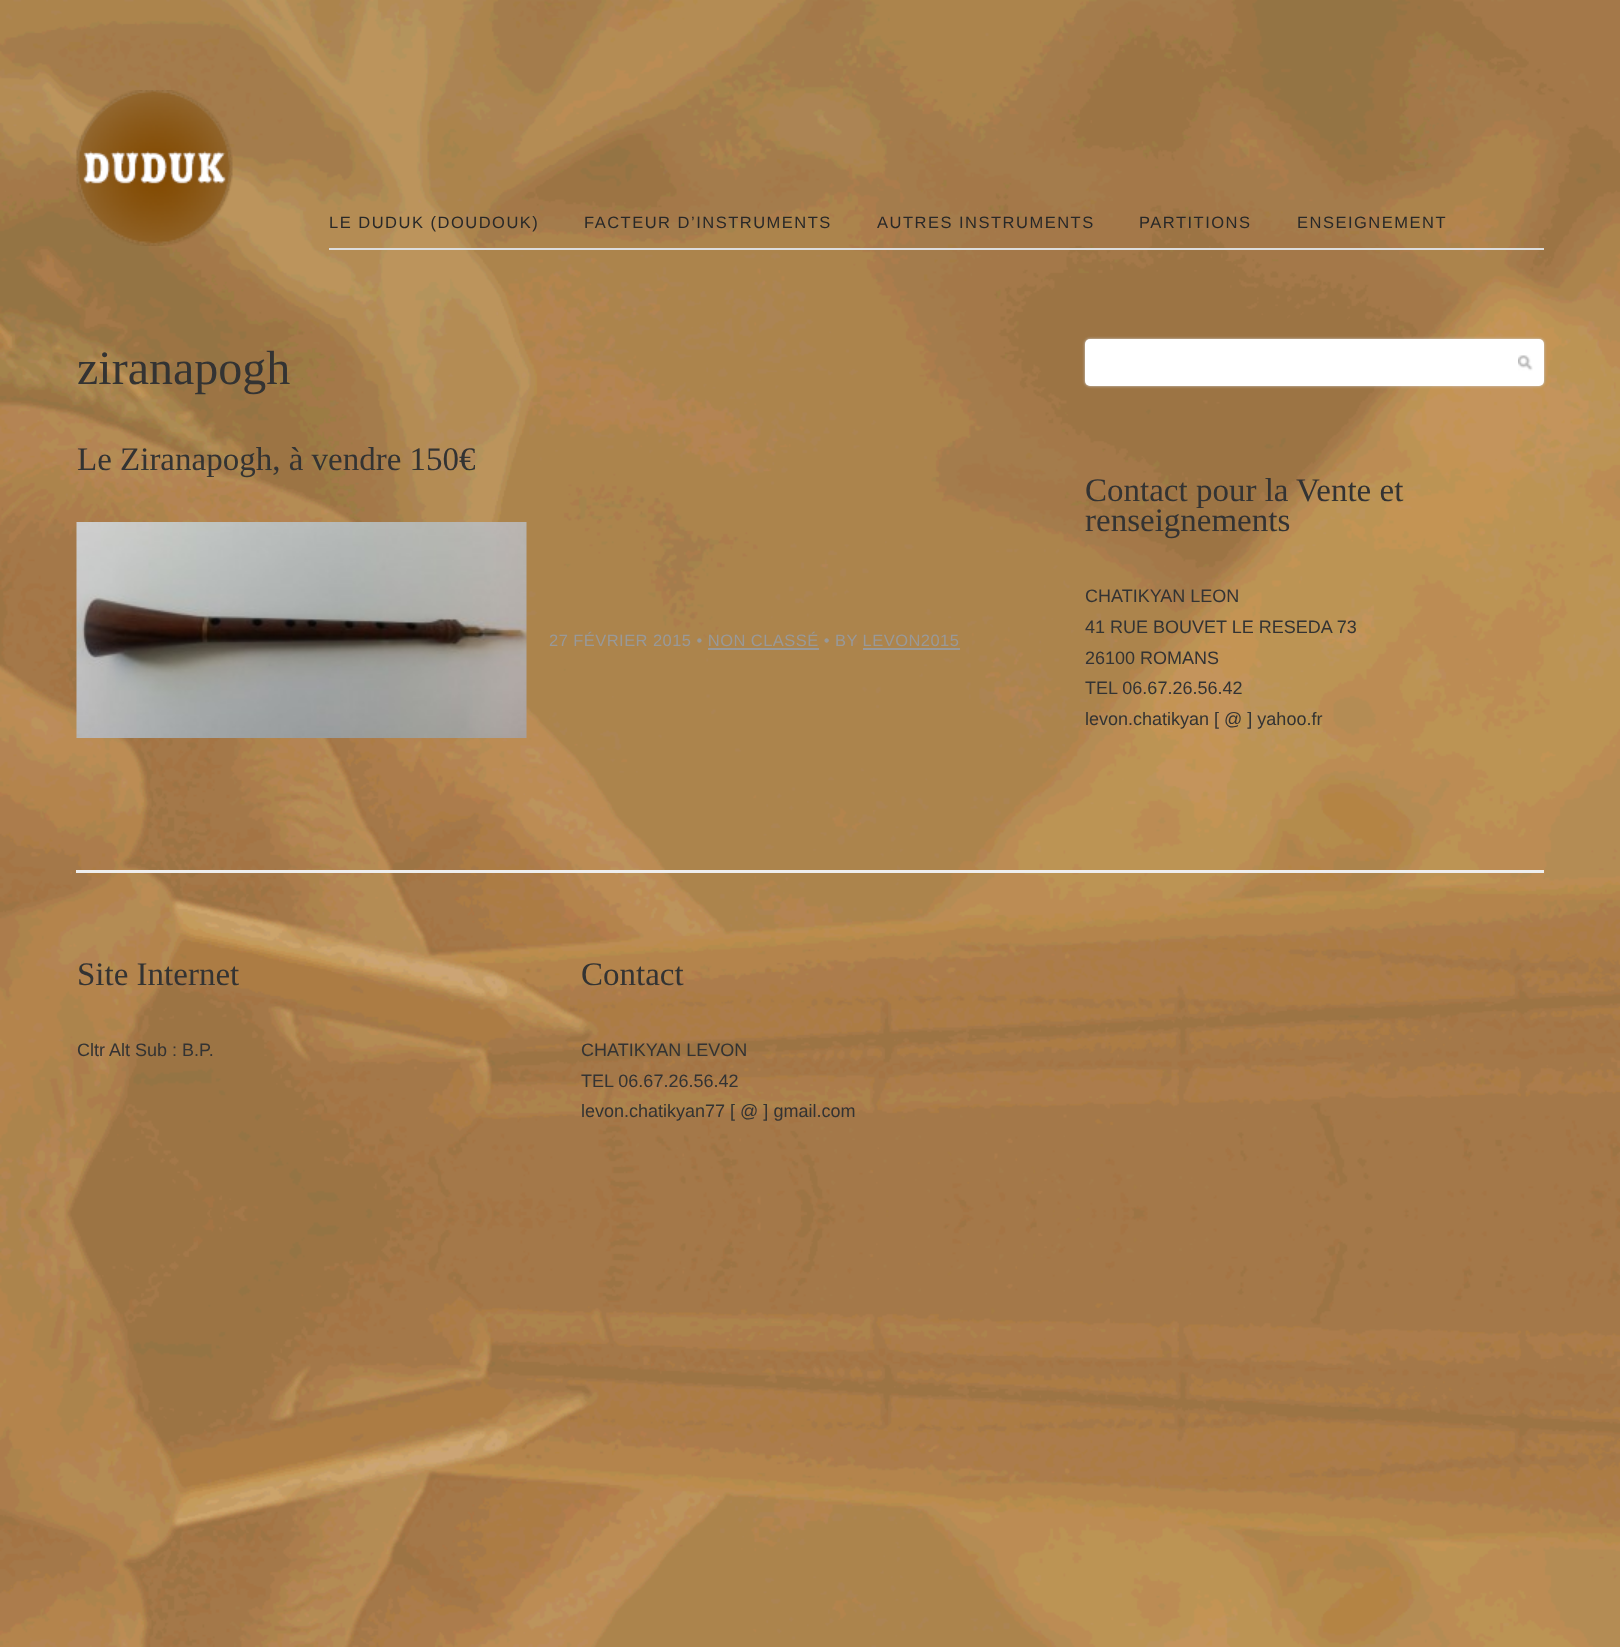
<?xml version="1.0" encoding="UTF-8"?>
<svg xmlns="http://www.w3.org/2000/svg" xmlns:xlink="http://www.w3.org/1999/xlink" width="1620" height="1647">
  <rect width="100%" height="100%" fill="#ffffff" />
  <image x="0" y="0" width="1620" height="1647" xlink:href="image1.png" />
  <image x="76" y="90" width="157" height="156" xlink:href="image2.png" />
  <rect x="329" y="248" width="1215" height="2" fill="#dddddd" />
  <image x="76" y="522" width="451" height="216" xlink:href="image3.png" />
  <rect x="708" y="648" width="111" height="2" fill="#999999" />
  <rect x="863" y="648" width="97" height="2" fill="#999999" />
  <rect x="1085" y="339" width="459" height="47" rx="5" fill="#cccccc" filter="blur(1.5px)" />
  <rect x="1085" y="339" width="459" height="47" rx="5" fill="#ffffff" />
  <image x="1518" y="355" width="15" height="16" xlink:href="image4.png" />
  <rect x="76" y="870" width="1468" height="3" fill="#eeeeee" />
  <text x="329" y="228" style="font-family: Liberation Sans; font-size: 16.5px; letter-spacing: 1.5px; fill: #282828">LE DUDUK (DOUDOUK)</text>
  <text x="584" y="228" style="font-family: Liberation Sans; font-size: 16.5px; letter-spacing: 1.5px; fill: #282828">FACTEUR D’INSTRUMENTS</text>
  <text x="877" y="228" style="font-family: Liberation Sans; font-size: 16.5px; letter-spacing: 1.5px; fill: #282828">AUTRES INSTRUMENTS</text>
  <text x="1139" y="228" style="font-family: Liberation Sans; font-size: 16.5px; letter-spacing: 1.5px; fill: #282828">PARTITIONS</text>
  <text x="1297" y="228" style="font-family: Liberation Sans; font-size: 16.5px; letter-spacing: 1.5px; fill: #282828">ENSEIGNEMENT</text>
  <text x="77" y="384" style="font-family: Liberation Serif; font-size: 48px; fill: #333333">ziranapogh</text>
  <text x="77" y="470" style="font-family: Liberation Serif; font-size: 33px; fill: #333333">Le Ziranapogh, à vendre 150€</text>
  <text x="549" y="646" style="font-family: Liberation Sans; font-size: 16.5px; letter-spacing: 0.45px; fill: #999999">27 FÉVRIER 2015 • NON CLASSÉ • BY LEVON2015</text>
  <text x="1085" y="501" style="font-family: Liberation Serif; font-size: 33px; fill: #333333">Contact pour la Vente et</text>
  <text x="1085" y="531" style="font-family: Liberation Serif; font-size: 33px; fill: #333333">renseignements</text>
  <text x="1085" y="602" style="font-family: Liberation Sans; font-size: 18px; fill: #333333">CHATIKYAN LEON</text>
  <text x="1085" y="633" style="font-family: Liberation Sans; font-size: 18px; fill: #333333">41 RUE BOUVET LE RESEDA 73</text>
  <text x="1085" y="664" style="font-family: Liberation Sans; font-size: 18px; fill: #333333">26100 ROMANS</text>
  <text x="1085" y="694" style="font-family: Liberation Sans; font-size: 18px; fill: #333333">TEL 06.67.26.56.42</text>
  <text x="1085" y="725" style="font-family: Liberation Sans; font-size: 18px; fill: #333333">levon.chatikyan [ @ ] yahoo.fr</text>
  <text x="77" y="985" style="font-family: Liberation Serif; font-size: 33px; fill: #333333">Site Internet</text>
  <text x="77" y="1056" style="font-family: Liberation Sans; font-size: 18px; fill: #333333">Cltr Alt Sub : B.P.</text>
  <text x="581" y="985" style="font-family: Liberation Serif; font-size: 33px; fill: #333333">Contact</text>
  <text x="581" y="1056" style="font-family: Liberation Sans; font-size: 18px; fill: #333333">CHATIKYAN LEVON</text>
  <text x="581" y="1087" style="font-family: Liberation Sans; font-size: 18px; fill: #333333">TEL 06.67.26.56.42</text>
  <text x="581" y="1117" style="font-family: Liberation Sans; font-size: 18px; fill: #333333">levon.chatikyan77 [ @ ] gmail.com</text>
</svg>
